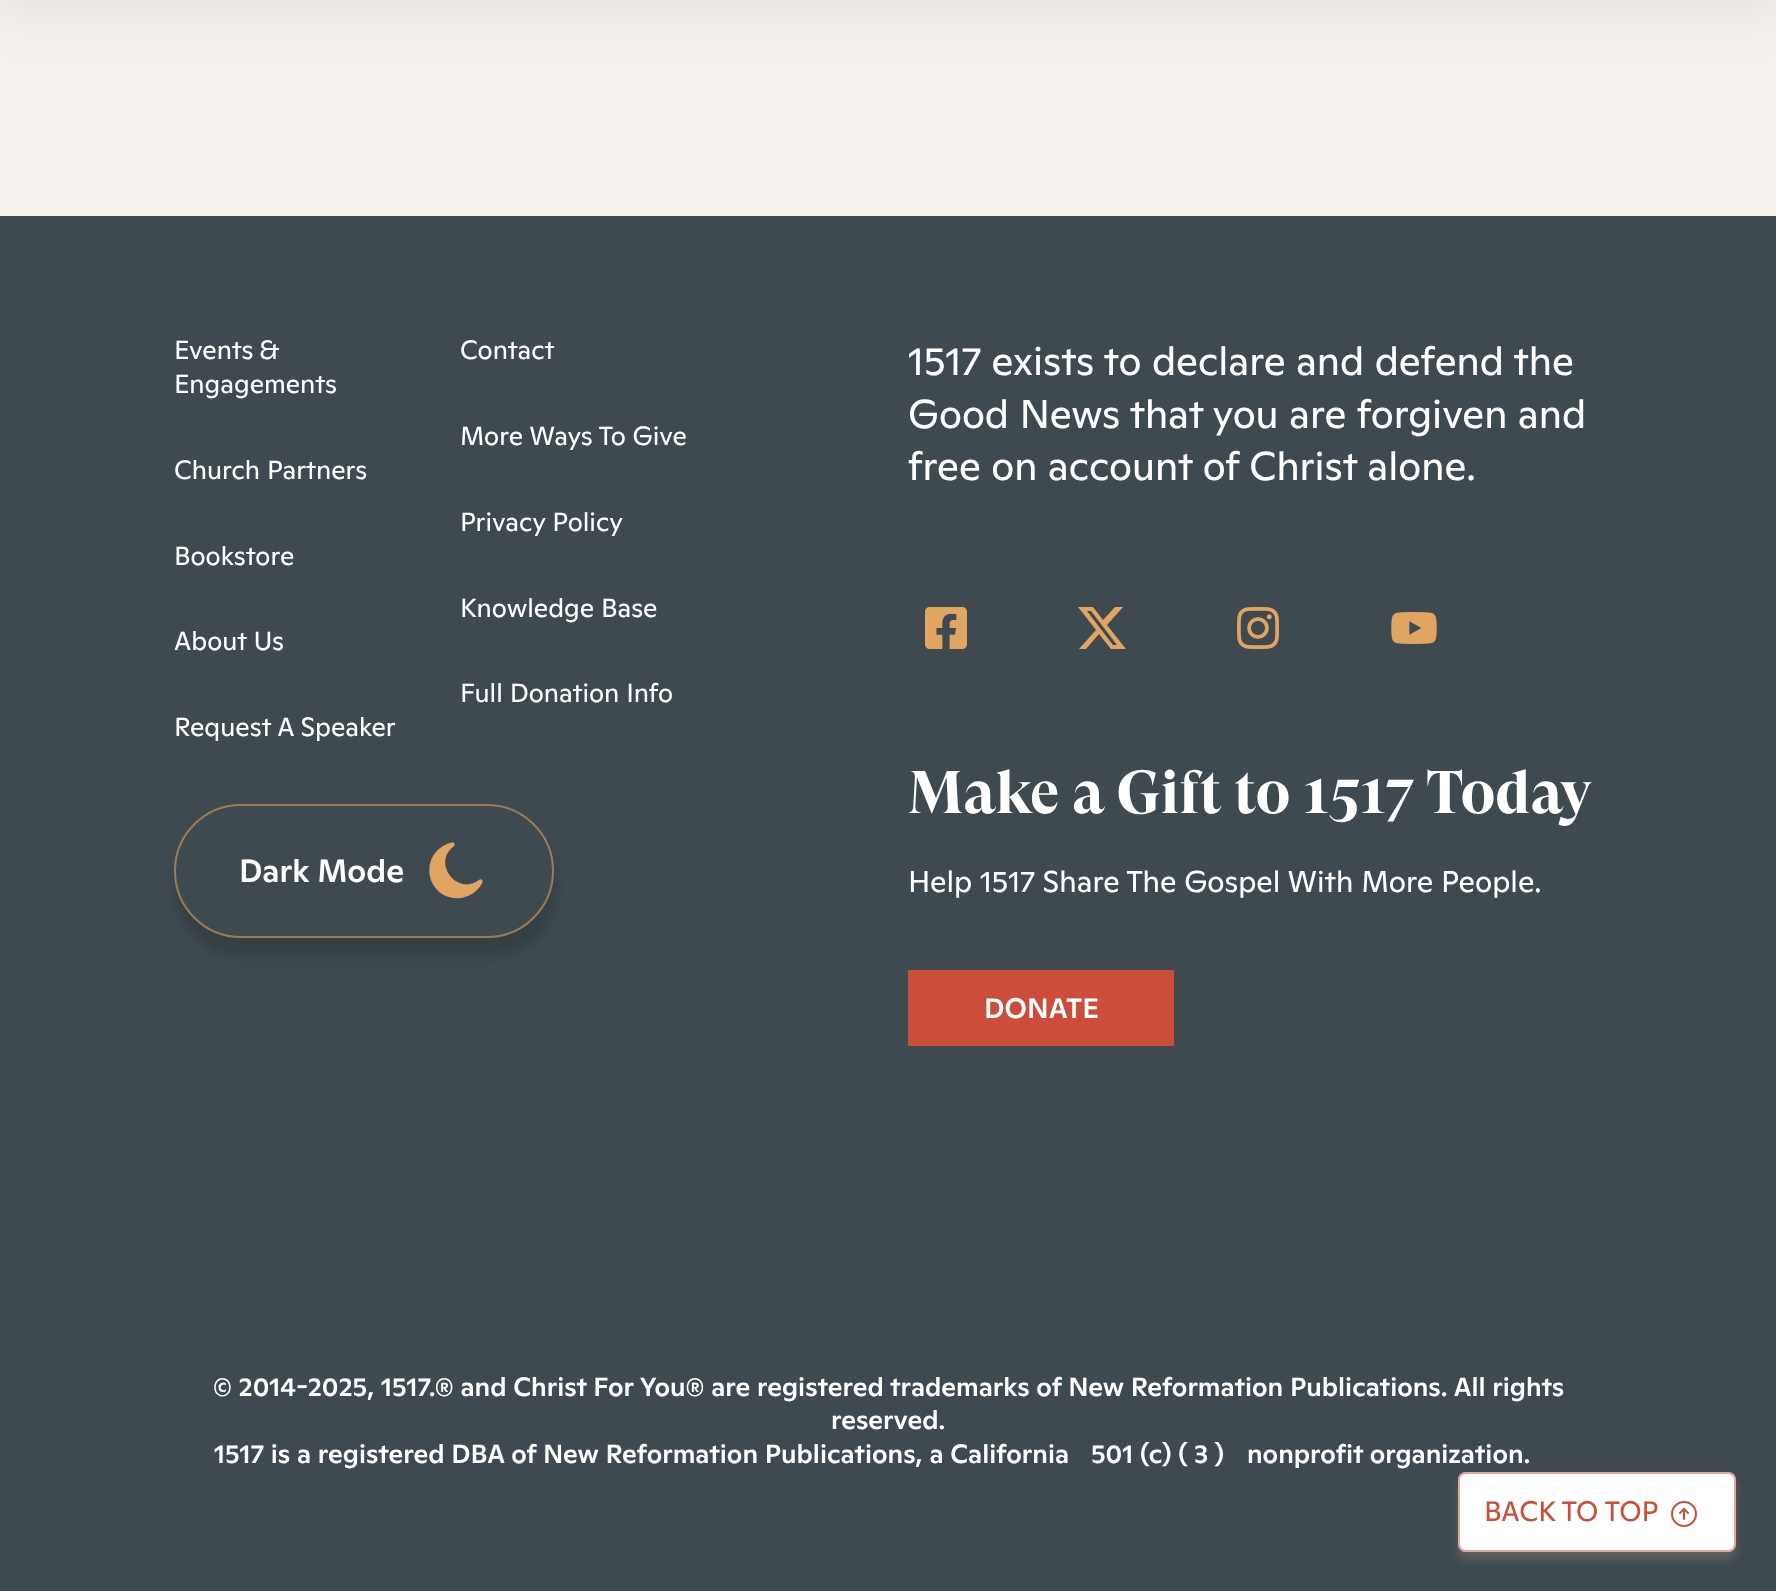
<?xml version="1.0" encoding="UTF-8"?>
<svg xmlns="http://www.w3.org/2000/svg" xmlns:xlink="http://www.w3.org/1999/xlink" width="1776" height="1591">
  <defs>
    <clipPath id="clip1"><path d="M 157 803 h 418 v 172 h -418 z m 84 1 h 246 c 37 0 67 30 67 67 c 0 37 -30 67 -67 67 h -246 c -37 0 -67 -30 -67 -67 c 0 -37 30 -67 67 -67 z" clip-rule="evenodd" /></clipPath>
  </defs>
  <rect width="100%" height="100%" fill="#f5f1ed" />
  <rect y="-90" width="1776" height="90" fill="#77838f" fill-opacity="0.2" filter="blur(30px)" />
  <rect y="216" width="1776" height="1375" fill="#3e4a50" />
  <g clip-path="url(#clip1)">
    <rect x="176" y="822" width="380" height="134" rx="67" fill="#000000" fill-opacity="0.14" filter="blur(6px)" />
  </g>
  <rect x="175" y="805" width="378" height="132" rx="66" fill="none" stroke="#e0a65a" stroke-opacity="0.57" stroke-width="2" />
  <path d="M 480 881 c -5 11 -17 17 -29 14 c -12 -3 -20 -13 -20 -26 c 1 -12 9 -22 21 -24 c -24 18 4 55 28 36 z" fill="#e0a661" />
  <path d="M 480.5 881.5 c -5.5 11 -17.5 16.5 -29.5 14 c -12 -3 -20 -14 -19.5 -26 c 0 -12 9 -22.5 21 -25 c -24.5 18.5 3.5 55.5 28 37 z" fill="none" stroke="#e0a661" stroke-width="4.3" stroke-linecap="round" stroke-linejoin="round" />
  <image x="925" y="607" width="42" height="42" xlink:href="image1.png" />
  <path d="M 1115 607 h 8 l -16 18 l 19 24 h -15 l -12 -15 l -13 15 h -7 l 17 -19 l -18 -23 h 15 l 10 13 z m -2 38 h 4 l -26 -34 h -4 z" fill="#e0a661" />
  <image x="1237" y="607" width="42" height="42" xlink:href="image2.png" />
  <image x="1391" y="612" width="46" height="32" xlink:href="image3.png" />
  <rect x="908" y="970" width="266" height="76" fill="#cc4d39" />
  <rect x="1458" y="1480" width="278" height="80" rx="8" fill="#baa086" fill-opacity="0.25" filter="blur(4px)" />
  <rect x="1458" y="1472" width="278" height="80" rx="8" fill="#ffffff" />
  <rect x="1459" y="1473" width="276" height="78" rx="7" fill="none" stroke="#cc4d39" stroke-opacity="0.5" stroke-width="2" />
  <image x="1671" y="1501" width="26" height="26" xlink:href="image4.png" />
  <text x="174" y="359" word-spacing="-1" style="font-family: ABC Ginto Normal; font-size: 26.25px; fill: #ffffff">Events &amp;</text>
  <text x="174" y="393" style="font-family: ABC Ginto Normal; font-size: 26.25px; fill: #ffffff">Engagements</text>
  <text x="460" y="359" style="font-family: ABC Ginto Normal; font-size: 26.25px; fill: #ffffff">Contact</text>
  <text x="460" y="445" style="font-family: ABC Ginto Normal; font-size: 26.25px; fill: #ffffff">More Ways To Give</text>
  <text x="174" y="479" style="font-family: ABC Ginto Normal; font-size: 26.25px; fill: #ffffff">Church Partners</text>
  <text x="460" y="531" style="font-family: ABC Ginto Normal; font-size: 26.25px; fill: #ffffff">Privacy Policy</text>
  <text x="174" y="565" style="font-family: ABC Ginto Normal; font-size: 26.25px; fill: #ffffff">Bookstore</text>
  <text x="460" y="617" style="font-family: ABC Ginto Normal; font-size: 26.25px; fill: #ffffff">Knowledge Base</text>
  <text x="174" y="650" style="font-family: ABC Ginto Normal; font-size: 26.25px; fill: #ffffff">About Us</text>
  <text x="460" y="702" style="font-family: ABC Ginto Normal; font-size: 26.25px; fill: #ffffff">Full Donation Info</text>
  <text x="174" y="736" style="font-family: ABC Ginto Normal; font-size: 26.25px; fill: #ffffff">Request A Speaker</text>
  <text x="239" y="882" style="font-family: ABC Ginto Normal; font-size: 32px; font-weight: 500; fill: #ffffff">Dark Mode</text>
  <text x="908" y="375" style="font-family: ABC Ginto Normal; font-size: 40px; fill: #ffffff">1517 exists to declare and defend the</text>
  <text x="908" y="428" style="font-family: ABC Ginto Normal; font-size: 40px; fill: #ffffff">Good News that you are forgiven and</text>
  <text x="908" y="480" style="font-family: ABC Ginto Normal; font-size: 40px; fill: #ffffff">free on account of Christ alone.</text>
  <text x="908" y="813" style="font-family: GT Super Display; font-size: 60px; font-weight: bold; fill: #ffffff">Make a Gift to 1517 Today</text>
  <text x="908" y="892" style="font-family: ABC Ginto Normal; font-size: 30px; fill: #ffffff">Help 1517 Share The Gospel With More People.</text>
  <text x="984" y="1018" style="font-family: ABC Ginto Normal; font-size: 28px; font-weight: 500; fill: #ffffff">DONATE</text>
  <text x="213" y="1396" style="font-family: ABC Ginto Normal; font-size: 26.25px; font-weight: 500; fill: #ffffff">© 2014-2025, 1517.® and Christ For You® are registered trademarks of New Reformation Publications. All rights</text>
  <text x="831" y="1429" style="font-family: ABC Ginto Normal; font-size: 26.25px; font-weight: 500; fill: #ffffff">reserved.</text>
  <text x="214" y="1463" style="font-family: ABC Ginto Normal; font-size: 26.25px; font-weight: 500; fill: #ffffff">1517 is a registered DBA of New Reformation Publications, a California</text>
  <text x="1091" y="1463" style="font-family: ABC Ginto Normal; font-size: 26.25px; font-weight: 500; fill: #ffffff">501 (c) ( 3 )</text>
  <text x="1247" y="1463" style="font-family: ABC Ginto Normal; font-size: 26.25px; font-weight: 500; fill: #ffffff">nonprofit organization.</text>
  <text x="1484" y="1521" style="font-family: ABC Ginto Normal; font-size: 28px; fill: #cc4d39">BACK TO TOP</text>
</svg>
